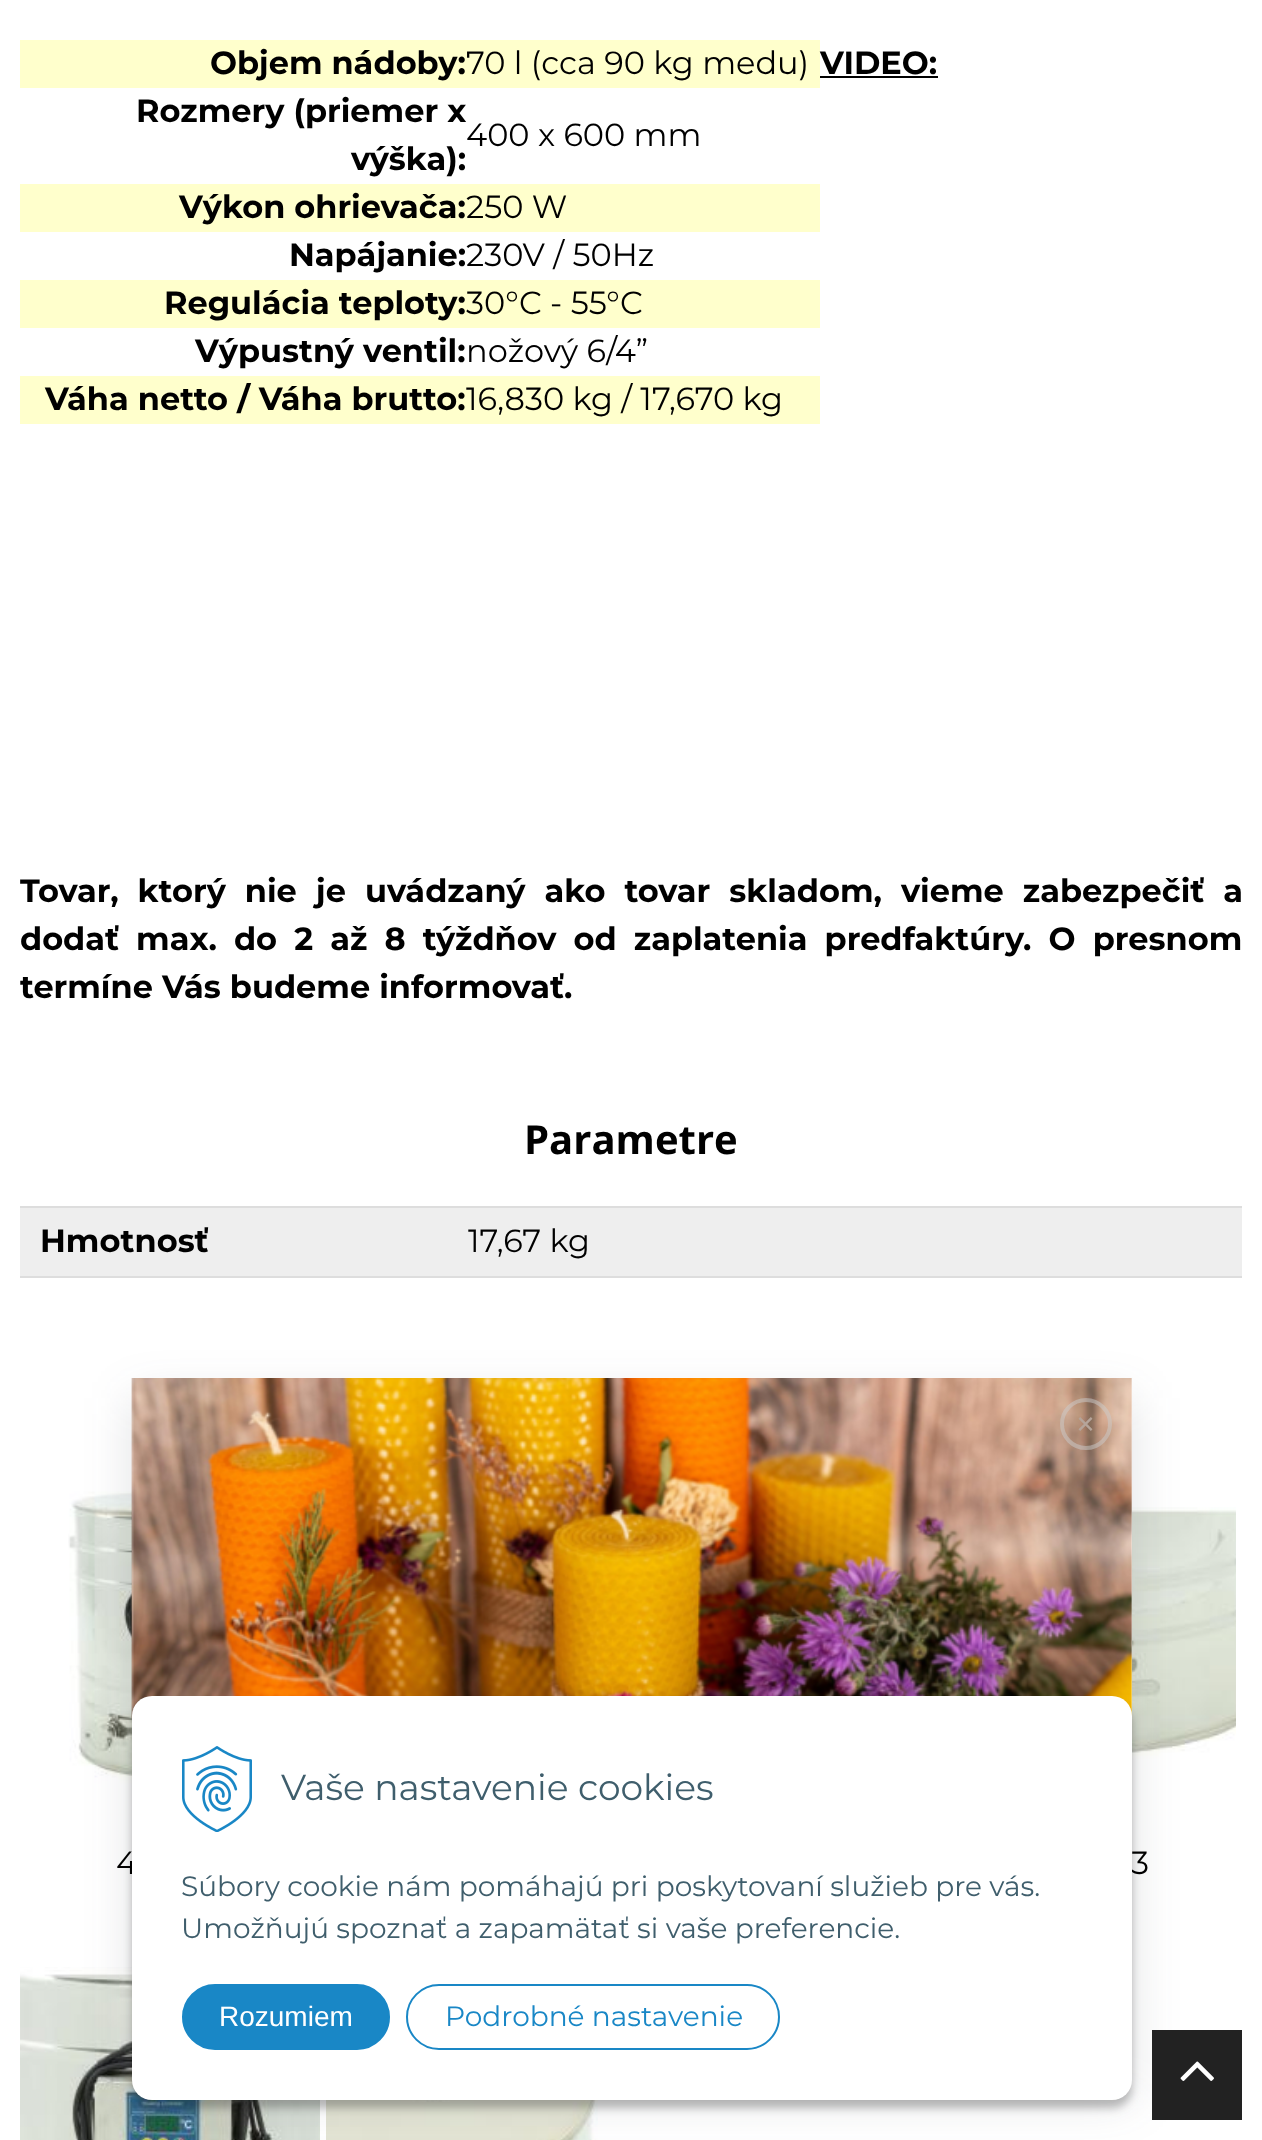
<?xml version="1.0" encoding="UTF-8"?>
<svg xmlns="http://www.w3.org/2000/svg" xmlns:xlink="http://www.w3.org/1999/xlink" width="1262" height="2140">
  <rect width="100%" height="100%" fill="#ffffff" />
  <rect x="20" y="40" width="800" height="48" fill="#ffffcc" />
  <rect x="20" y="184" width="800" height="48" fill="#ffffcc" />
  <rect x="20" y="280" width="800" height="48" fill="#ffffcc" />
  <rect x="20" y="376" width="800" height="48" fill="#ffffcc" />
  <rect x="820" y="76" width="118" height="2" fill="#000000" />
  <rect x="20" y="1206" width="1222" height="2" fill="#dddddd" />
  <rect x="20" y="1208" width="1222" height="68" fill="#eeeeee" />
  <rect x="20" y="1276" width="1222" height="2" fill="#dddddd" />
  <image x="68" y="1489" width="64" height="297" xlink:href="image1.png" />
  <image x="1132" y="1507" width="104" height="253" xlink:href="image2.png" />
  <image x="20" y="1967" width="300" height="173" xlink:href="image3.png" />
  <image x="326" y="2100" width="272" height="40" xlink:href="image4.png" />
  <rect x="132" y="1398" width="1000" height="702" fill="#363d4d" fill-opacity="0.15" filter="blur(24px)" />
  <rect x="1152" y="2030" width="90" height="90" fill="#222222" />
  <image x="1180" y="2061" width="34" height="20" xlink:href="image5.png" />
  <rect x="132" y="1378" width="1000" height="338" fill="#ffffff" />
  <image x="131" y="1378" width="1001" height="341" xlink:href="image6.png" />
  <circle cx="1086" cy="1424" r="24" fill="none" stroke="#cccccc" stroke-opacity="0.5" stroke-width="4" />
  <rect x="132" y="1704" width="1000" height="404" rx="20" fill="#000000" fill-opacity="0.25" filter="blur(4px)" />
  <text x="210" y="74" style="font-family: Montserrat; font-size: 32px; font-weight: bold; fill: #000000">Objem nádoby:</text>
  <text x="466" y="74" style="font-family: Montserrat; font-size: 32px; fill: #000000">70 l (cca 90 kg medu)</text>
  <text x="136" y="122" style="font-family: Montserrat; font-size: 32px; font-weight: bold; fill: #000000">Rozmery (priemer x</text>
  <text x="351" y="170" style="font-family: Montserrat; font-size: 32px; font-weight: bold; fill: #000000">výška):</text>
  <text x="466" y="146" style="font-family: Montserrat; font-size: 32px; fill: #000000">400 x 600 mm</text>
  <text x="179" y="218" style="font-family: Montserrat; font-size: 32px; font-weight: bold; fill: #000000">Výkon ohrievača:</text>
  <text x="466" y="218" style="font-family: Montserrat; font-size: 32px; fill: #000000">250 W</text>
  <text x="289" y="266" style="font-family: Montserrat; font-size: 32px; font-weight: bold; fill: #000000">Napájanie:</text>
  <text x="466" y="266" style="font-family: Montserrat; font-size: 32px; fill: #000000">230V / 50Hz</text>
  <text x="164" y="314" style="font-family: Montserrat; font-size: 32px; font-weight: bold; fill: #000000">Regulácia teploty:</text>
  <text x="466" y="314" style="font-family: Montserrat; font-size: 32px; fill: #000000">30°C - 55°C</text>
  <text x="195" y="362" style="font-family: Montserrat; font-size: 32px; font-weight: bold; fill: #000000">Výpustný ventil:</text>
  <text x="466" y="362" style="font-family: Montserrat; font-size: 32px; fill: #000000">nožový 6/4”</text>
  <text x="45" y="410" style="font-family: Montserrat; font-size: 32px; font-weight: bold; fill: #000000">Váha netto / Váha brutto:</text>
  <text x="466" y="410" style="font-family: Montserrat; font-size: 32px; fill: #000000">16,830 kg / 17,670 kg</text>
  <text x="820" y="74" style="font-family: Montserrat; font-size: 32px; font-weight: bold; fill: #000000">VIDEO:</text>
  <text x="20" y="902" word-spacing="10" style="font-family: Montserrat; font-size: 32px; font-weight: bold; fill: #000000">Tovar, ktorý nie je uvádzaný ako tovar skladom, vieme zabezpečiť a</text>
  <text x="20" y="950" word-spacing="8.1" style="font-family: Montserrat; font-size: 32px; font-weight: bold; fill: #000000">dodať max. do 2 až 8 týždňov od zaplatenia predfaktúry. O presnom</text>
  <text x="20" y="998" style="font-family: Montserrat; font-size: 32px; font-weight: bold; fill: #000000">termíne Vás budeme informovať.</text>
  <text x="524" y="1154" style="font-family: Open Sans; font-size: 40px; font-weight: bold; fill: #000000">Parametre</text>
  <text x="40" y="1252" style="font-family: Montserrat; font-size: 32px; font-weight: bold; fill: #000000">Hmotnosť</text>
  <text x="468" y="1252" style="font-family: Montserrat; font-size: 32px; fill: #000000">17,67 kg</text>
  <text x="116" y="1874" style="font-family: Montserrat; font-size: 32px; fill: #000000">4</text>
  <text x="1131" y="1874" style="font-family: Montserrat; font-size: 32px; fill: #000000">3</text>
  <text x="1074" y="1438" style="font-family: Montserrat; font-size: 40px; fill: #b5a49a">×</text>
  <rect x="132" y="1696" width="1000" height="404" rx="20" fill="#ffffff" />
  <image x="182" y="1746" width="70" height="86" xlink:href="image7.png" />
  <text x="281" y="1800" style="font-family: Montserrat; font-size: 36px; fill: #3f5e6c">Vaše nastavenie cookies</text>
  <text x="181" y="1896" style="font-family: Montserrat; font-size: 28px; fill: #3f5e6c">Súbory cookie nám pomáhajú pri poskytovaní služieb pre vás.</text>
  <text x="181" y="1938" style="font-family: Montserrat; font-size: 28px; fill: #3f5e6c">Umožňujú spoznať a zapamätať si vaše preferencie.</text>
  <rect x="183" y="1985" width="206" height="64" rx="32" fill="#1987c6" stroke="#1987c6" stroke-width="2" />
  <text x="219" y="2026" style="font-family: Liberation Sans; font-size: 28px; fill: #ffffff">Rozumiem</text>
  <rect x="407" y="1985" width="372" height="64" rx="32" fill="none" stroke="#1987c6" stroke-width="2" />
  <text x="445" y="2026" style="font-family: Montserrat; font-size: 28px; fill: #1987c6">Podrobné nastavenie</text>
</svg>
